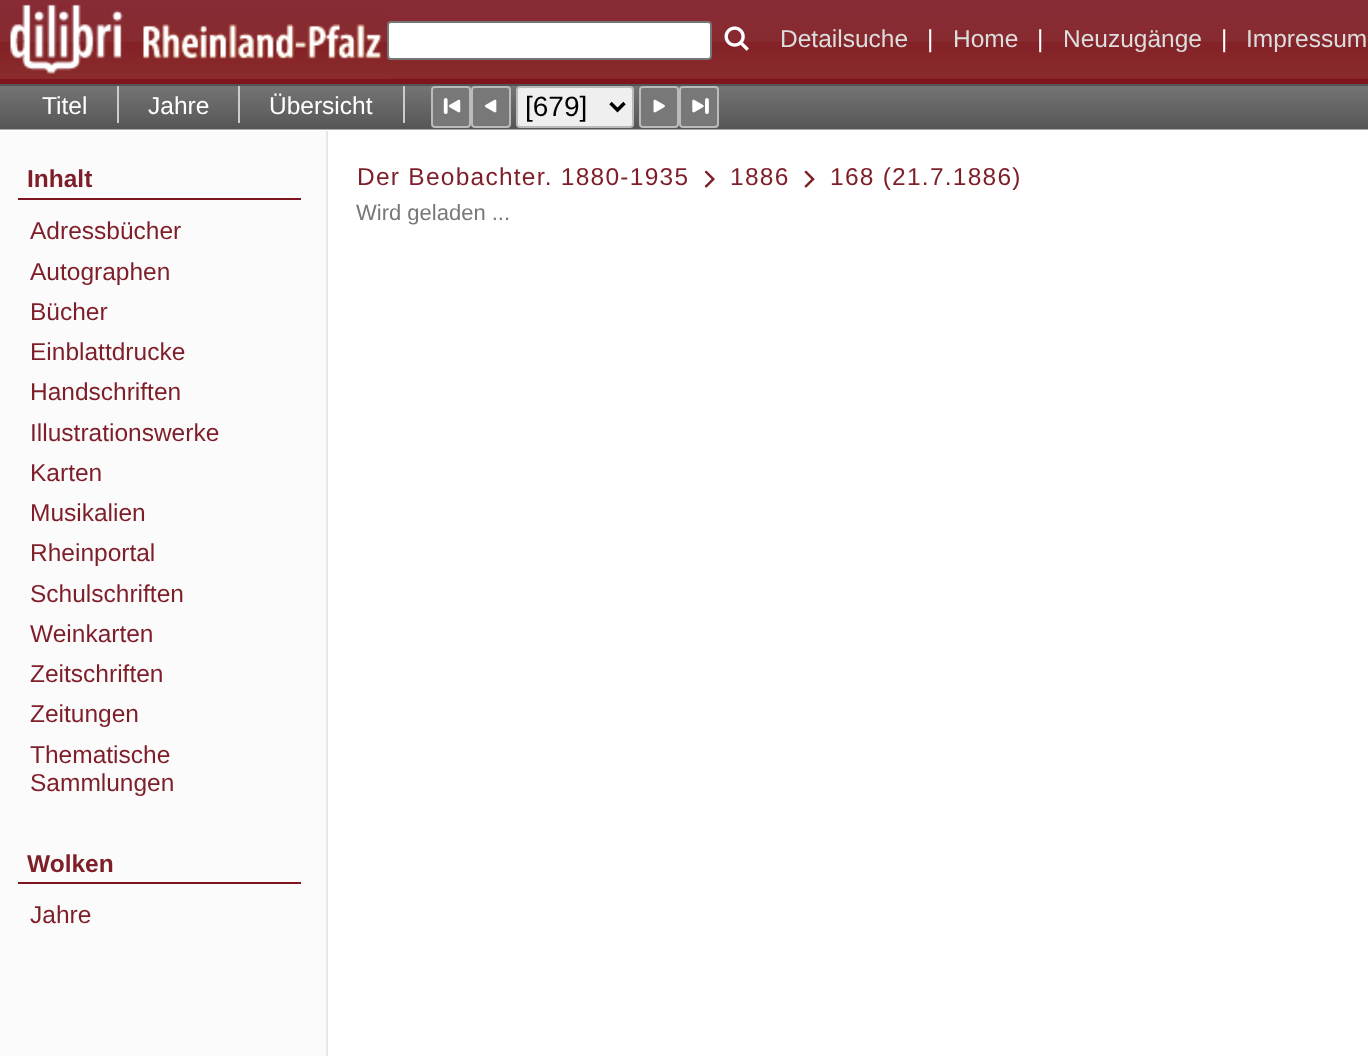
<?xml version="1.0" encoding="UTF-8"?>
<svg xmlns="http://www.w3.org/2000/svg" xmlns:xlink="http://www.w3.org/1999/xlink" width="1368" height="1056">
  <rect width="100%" height="100%" fill="#ffffff" />
  <rect y="78" width="1368" height="6" fill="#7d141e" />
  <image x="0" y="0" width="1368" height="79" xlink:href="image1.png" />
  <image x="0" y="4" width="386" height="75" xlink:href="image2.png" />
  <rect x="388" y="22" width="323" height="37" rx="3" fill="#ffffff" stroke="#767676" stroke-width="2" />
  <image x="724" y="26" width="25" height="25" xlink:href="image3.png" />
  <image x="0" y="86" width="1368" height="44" xlink:href="image4.png" />
  <rect y="84" width="1368" height="2" fill="#555555" />
  <rect x="117" y="86" width="2" height="37" fill="#cccccc" />
  <rect x="238" y="86" width="2" height="37" fill="#cccccc" />
  <rect x="403" y="86" width="2" height="37" fill="#cccccc" />
  <rect x="432" y="87" width="38" height="40" rx="3" fill="#787878" stroke="#bbbbbb" stroke-width="2" />
  <image x="443" y="98" width="18" height="16" xlink:href="image5.png" />
  <rect x="472" y="87" width="38" height="40" rx="3" fill="#787878" stroke="#bbbbbb" stroke-width="2" />
  <image x="485" y="99" width="12" height="14" xlink:href="image6.png" />
  <rect x="517" y="87" width="116" height="40" rx="3" fill="#efefef" stroke="#bbbbbb" stroke-width="2" />
  <path d="M 610.5 103 l 7 7 l 7 -7" fill="none" stroke="#000000" stroke-width="3.5" />
  <rect x="640" y="87" width="38" height="40" rx="3" fill="#787878" stroke="#bbbbbb" stroke-width="2" />
  <image x="653" y="99" width="12" height="14" xlink:href="image7.png" />
  <rect x="680" y="87" width="38" height="40" rx="3" fill="#787878" stroke="#bbbbbb" stroke-width="2" />
  <image x="692" y="98" width="17" height="16" xlink:href="image8.png" />
  <rect y="131" width="326" height="925" fill="#fbfbfb" />
  <rect x="326" y="131" width="2" height="925" fill="#e7e7e7" />
  <rect x="18" y="198" width="283" height="2" fill="#7d141e" />
  <rect x="18" y="882" width="283" height="2" fill="#7d141e" />
  <image x="704" y="170" width="11" height="18" xlink:href="image9.png" />
  <image x="804" y="170" width="11" height="18" xlink:href="image10.png" />
  <text x="780" y="47" style="font-family: Liberation Sans; font-size: 24.5px; fill: #dddddd">Detailsuche</text>
  <text x="927" y="47" style="font-family: Liberation Sans; font-size: 24.5px; fill: #ffffff">|</text>
  <text x="953" y="47" style="font-family: Liberation Sans; font-size: 24.5px; fill: #dddddd">Home</text>
  <text x="1037" y="47" style="font-family: Liberation Sans; font-size: 24.5px; fill: #ffffff">|</text>
  <text x="1063" y="47" style="font-family: Liberation Sans; font-size: 24.5px; fill: #dddddd">Neuzugänge</text>
  <text x="1221" y="47" style="font-family: Liberation Sans; font-size: 24.5px; fill: #ffffff">|</text>
  <text x="1246" y="47" style="font-family: Liberation Sans; font-size: 24.5px; fill: #dddddd">Impressum</text>
  <text x="42" y="114" style="font-family: Liberation Sans; font-size: 24.5px; fill: #ffffff">Titel</text>
  <text x="148" y="114" style="font-family: Liberation Sans; font-size: 24.5px; fill: #ffffff">Jahre</text>
  <text x="269" y="114" style="font-family: Liberation Sans; font-size: 24.5px; fill: #ffffff">Übersicht</text>
  <text x="525" y="116" style="font-family: Liberation Sans; font-size: 28px; fill: #000000">[679]</text>
  <text x="27" y="187" style="font-family: Liberation Sans; font-size: 24.5px; font-weight: bold; fill: #7e1e29">Inhalt</text>
  <text x="30" y="239" style="font-family: Liberation Sans; font-size: 24.5px; fill: #7e1e29">Adressbücher</text>
  <text x="30" y="280" style="font-family: Liberation Sans; font-size: 24.5px; fill: #7e1e29">Autographen</text>
  <text x="30" y="320" style="font-family: Liberation Sans; font-size: 24.5px; fill: #7e1e29">Bücher</text>
  <text x="30" y="360" style="font-family: Liberation Sans; font-size: 24.5px; fill: #7e1e29">Einblattdrucke</text>
  <text x="30" y="400" style="font-family: Liberation Sans; font-size: 24.5px; fill: #7e1e29">Handschriften</text>
  <text x="30" y="441" style="font-family: Liberation Sans; font-size: 24.5px; fill: #7e1e29">Illustrationswerke</text>
  <text x="30" y="481" style="font-family: Liberation Sans; font-size: 24.5px; fill: #7e1e29">Karten</text>
  <text x="30" y="521" style="font-family: Liberation Sans; font-size: 24.5px; fill: #7e1e29">Musikalien</text>
  <text x="30" y="561" style="font-family: Liberation Sans; font-size: 24.5px; fill: #7e1e29">Rheinportal</text>
  <text x="30" y="602" style="font-family: Liberation Sans; font-size: 24.5px; fill: #7e1e29">Schulschriften</text>
  <text x="30" y="642" style="font-family: Liberation Sans; font-size: 24.5px; fill: #7e1e29">Weinkarten</text>
  <text x="30" y="682" style="font-family: Liberation Sans; font-size: 24.5px; fill: #7e1e29">Zeitschriften</text>
  <text x="30" y="722" style="font-family: Liberation Sans; font-size: 24.5px; fill: #7e1e29">Zeitungen</text>
  <text x="30" y="763" style="font-family: Liberation Sans; font-size: 24.5px; fill: #7e1e29">Thematische</text>
  <text x="30" y="791" style="font-family: Liberation Sans; font-size: 24.5px; fill: #7e1e29">Sammlungen</text>
  <text x="27" y="872" style="font-family: Liberation Sans; font-size: 24.5px; font-weight: bold; fill: #7e1e29">Wolken</text>
  <text x="30" y="923" style="font-family: Liberation Sans; font-size: 24.5px; fill: #7e1e29">Jahre</text>
  <text x="357" y="185" style="font-family: Liberation Sans; font-size: 24.5px; letter-spacing: 1.25px; fill: #7e1e29">Der Beobachter. 1880-1935</text>
  <text x="730" y="185" style="font-family: Liberation Sans; font-size: 24.5px; letter-spacing: 1.25px; fill: #7e1e29">1886</text>
  <text x="830" y="185" style="font-family: Liberation Sans; font-size: 24.5px; letter-spacing: 1.25px; fill: #7e1e29">168 (21.7.1886)</text>
  <text x="356" y="220" style="font-family: Liberation Sans; font-size: 22px; fill: #777777">Wird geladen ...</text>
</svg>
